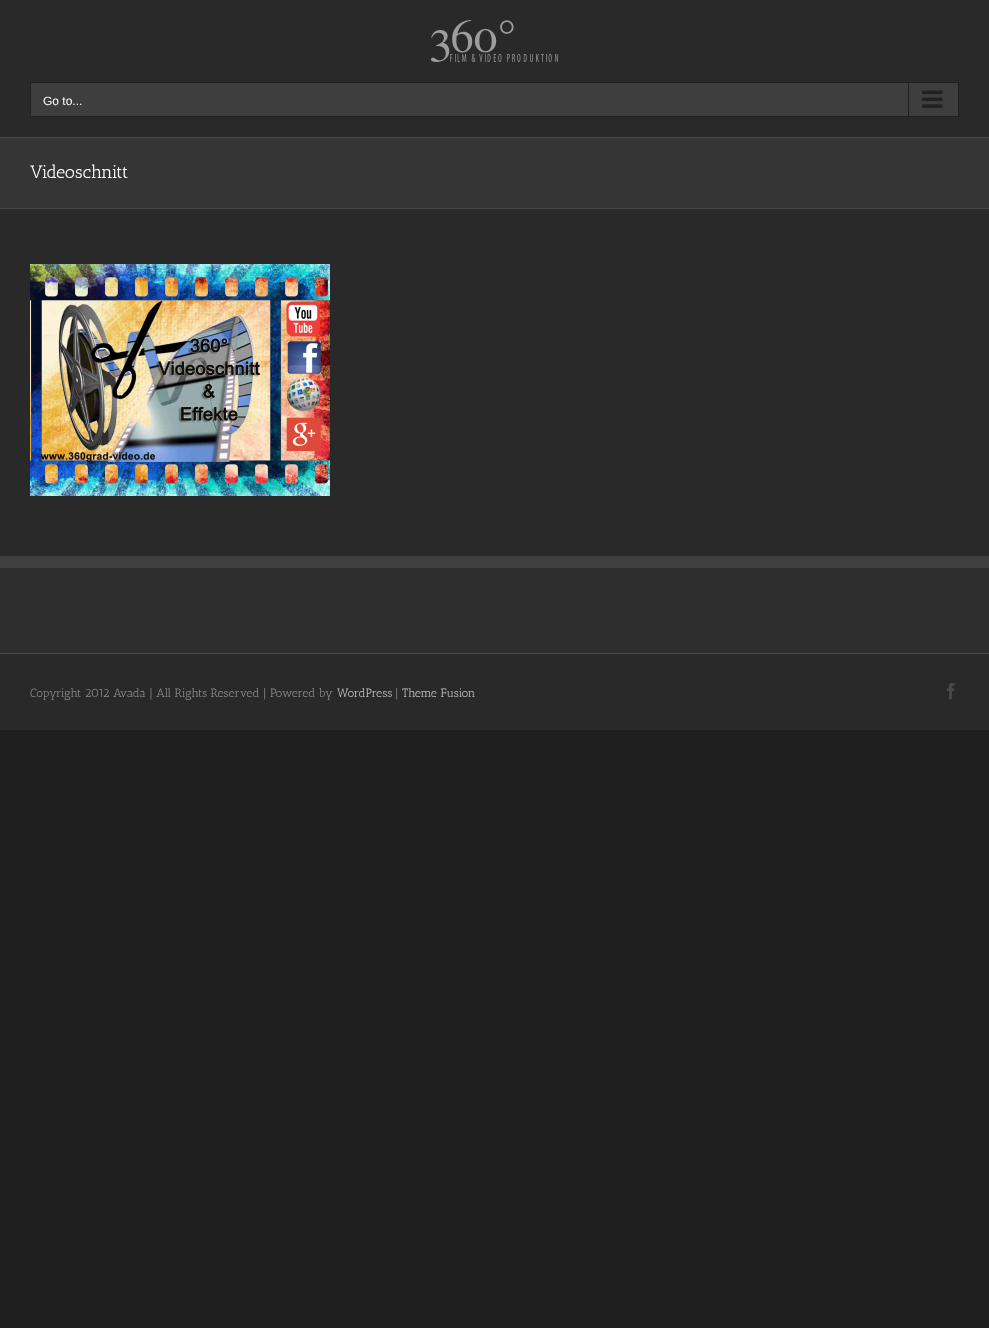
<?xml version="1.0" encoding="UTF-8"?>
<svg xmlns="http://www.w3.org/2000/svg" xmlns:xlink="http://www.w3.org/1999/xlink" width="989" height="1328">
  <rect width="100%" height="100%" fill="#1e1e1e" />
  <rect width="989" height="730" fill="#29292a" />
  <image x="431" y="20" width="127" height="42" xlink:href="image1.png" />
  <rect x="30.5" y="82.5" width="928" height="34" fill="#3e3e3e" stroke="#212122" />
  <rect x="908" y="83" width="1" height="33" fill="#212122" />
  <image x="922" y="90" width="21" height="18" xlink:href="image2.png" />
  <rect y="138" width="989" height="70" fill="#353535" />
  <rect y="137" width="989" height="1" fill="#464646" />
  <rect y="208" width="989" height="1" fill="#464646" />
  <image x="30" y="264" width="300" height="232" xlink:href="image3.png" />
  <rect y="568" width="989" height="85" fill="#2d2d2d" />
  <rect y="556" width="989" height="12" fill="#403f3f" />
  <rect y="653" width="989" height="1" fill="#4b4c4d" />
  <image x="947" y="683" width="8" height="16" xlink:href="image4.png" />
  <text x="43" y="105" style="font-family: Liberation Sans; font-size: 12px; fill: #ffffff">Go to...</text>
  <text x="30" y="178" style="font-family: Antic Slab; font-size: 18px; fill: #ffffff">Videoschnitt</text>
  <text x="30" y="697" style="font-family: Antic Slab; font-size: 12px; fill: #8c8989">Copyright 2012 Avada | All Rights Reserved | Powered by</text>
  <text x="337" y="697" style="font-family: Antic Slab; font-size: 12px; fill: #bfbfbf">WordPress</text>
  <text x="395" y="697" style="font-family: Antic Slab; font-size: 12px; fill: #8c8989">|</text>
  <text x="402" y="697" style="font-family: Antic Slab; font-size: 12px; fill: #bfbfbf">Theme Fusion</text>
</svg>
